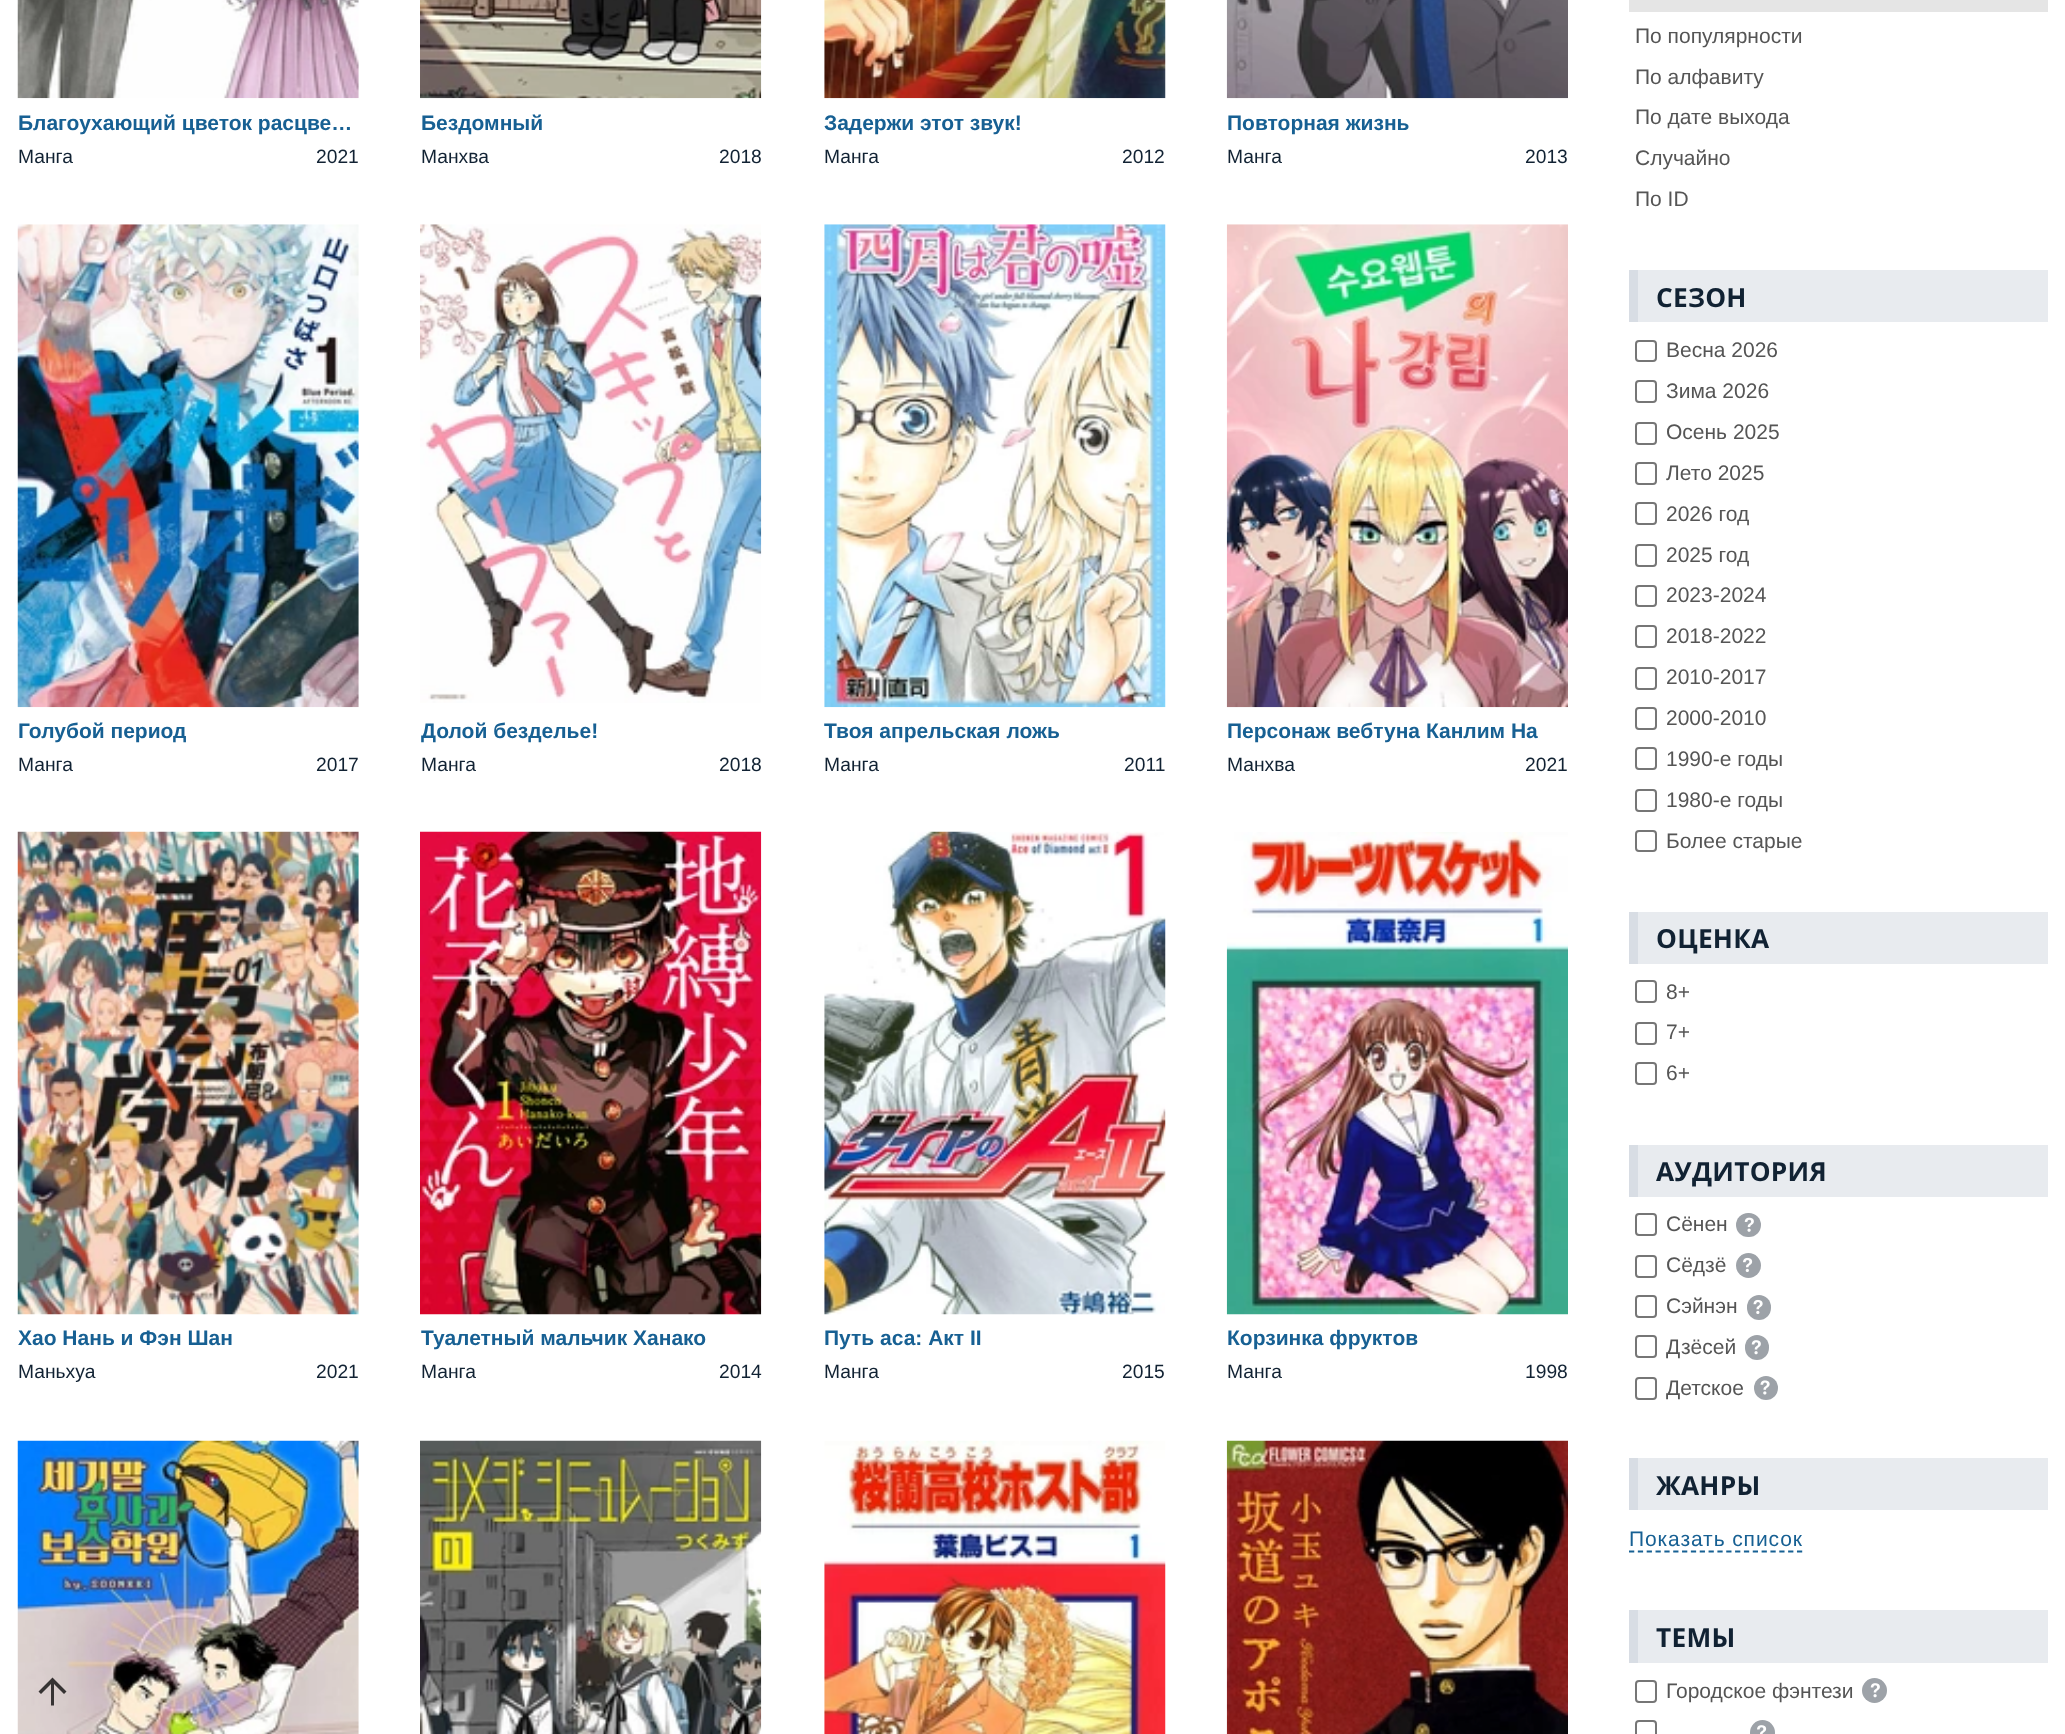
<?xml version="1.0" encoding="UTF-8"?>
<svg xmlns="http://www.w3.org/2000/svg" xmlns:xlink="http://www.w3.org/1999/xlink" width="2065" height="1734">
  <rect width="100%" height="100%" fill="#ffffff" />
  <image x="17" y="0" width="342" height="99" xlink:href="image1.png" />
  <image x="420" y="0" width="342" height="99" xlink:href="image2.png" />
  <image x="824" y="0" width="342" height="99" xlink:href="image3.png" />
  <image x="1226" y="0" width="342" height="99" xlink:href="image4.png" />
  <image x="17" y="224" width="342" height="484" xlink:href="image5.png" />
  <image x="420" y="224" width="342" height="479" xlink:href="image6.png" />
  <image x="824" y="224" width="342" height="484" xlink:href="image7.png" />
  <image x="1226" y="224" width="342" height="484" xlink:href="image8.png" />
  <image x="17" y="831" width="342" height="484" xlink:href="image9.png" />
  <image x="420" y="831" width="342" height="484" xlink:href="image10.png" />
  <image x="824" y="831" width="342" height="484" xlink:href="image11.png" />
  <image x="1226" y="832" width="342" height="483" xlink:href="image12.png" />
  <image x="17" y="1440" width="342" height="294" xlink:href="image13.png" />
  <image x="420" y="1440" width="342" height="294" xlink:href="image14.png" />
  <image x="824" y="1440" width="342" height="294" xlink:href="image15.png" />
  <image x="1226" y="1440" width="342" height="294" xlink:href="image16.png" />
  <rect x="1629" width="419" height="12" fill="#e5e5e5" />
  <rect x="1638" y="270" width="410" height="52" fill="#e8ebef" />
  <rect x="1629" y="270" width="9" height="52" fill="#d8dde4" />
  <rect x="1636" y="341" width="20" height="20" rx="3" fill="none" stroke="#767676" stroke-width="2" />
  <rect x="1636" y="381" width="20" height="21" rx="3" fill="none" stroke="#767676" stroke-width="2" />
  <rect x="1636" y="423" width="20" height="21" rx="3" fill="none" stroke="#767676" stroke-width="2" />
  <rect x="1636" y="463" width="20" height="21" rx="3" fill="none" stroke="#767676" stroke-width="2" />
  <rect x="1636" y="503" width="20" height="21" rx="3" fill="none" stroke="#767676" stroke-width="2" />
  <rect x="1636" y="545" width="20" height="21" rx="3" fill="none" stroke="#767676" stroke-width="2" />
  <rect x="1636" y="586" width="20" height="20" rx="3" fill="none" stroke="#767676" stroke-width="2" />
  <rect x="1636" y="626" width="20" height="21" rx="3" fill="none" stroke="#767676" stroke-width="2" />
  <rect x="1636" y="668" width="20" height="21" rx="3" fill="none" stroke="#767676" stroke-width="2" />
  <rect x="1636" y="708" width="20" height="21" rx="3" fill="none" stroke="#767676" stroke-width="2" />
  <rect x="1636" y="748" width="20" height="21" rx="3" fill="none" stroke="#767676" stroke-width="2" />
  <rect x="1636" y="790" width="20" height="21" rx="3" fill="none" stroke="#767676" stroke-width="2" />
  <rect x="1636" y="831" width="20" height="20" rx="3" fill="none" stroke="#767676" stroke-width="2" />
  <rect x="1638" y="912" width="410" height="52" fill="#e8ebef" />
  <rect x="1629" y="912" width="9" height="52" fill="#d8dde4" />
  <rect x="1636" y="981" width="20" height="21" rx="3" fill="none" stroke="#767676" stroke-width="2" />
  <rect x="1636" y="1023" width="20" height="21" rx="3" fill="none" stroke="#767676" stroke-width="2" />
  <rect x="1636" y="1063" width="20" height="21" rx="3" fill="none" stroke="#767676" stroke-width="2" />
  <rect x="1638" y="1145" width="410" height="52" fill="#e8ebef" />
  <rect x="1629" y="1145" width="9" height="52" fill="#d8dde4" />
  <rect x="1636" y="1214" width="20" height="21" rx="3" fill="none" stroke="#767676" stroke-width="2" />
  <rect x="1736" y="1213" width="25" height="24" rx="12" fill="#9da2a8" />
  <image x="1744" y="1217" width="10" height="15" xlink:href="image17.png" />
  <rect x="1636" y="1256" width="20" height="21" rx="3" fill="none" stroke="#767676" stroke-width="2" />
  <circle cx="1748.5" cy="1265.5" r="12.5" fill="#9da2a8" />
  <image x="1743" y="1257" width="10" height="15" xlink:href="image18.png" />
  <rect x="1636" y="1296" width="20" height="21" rx="3" fill="none" stroke="#767676" stroke-width="2" />
  <rect x="1747" y="1295" width="24" height="25" rx="12" fill="#9da2a8" />
  <image x="1753" y="1299" width="10" height="15" xlink:href="image19.png" />
  <rect x="1636" y="1336" width="20" height="21" rx="3" fill="none" stroke="#767676" stroke-width="2" />
  <rect x="1745" y="1335" width="24" height="25" rx="12" fill="#9da2a8" />
  <image x="1751" y="1340" width="10" height="15" xlink:href="image20.png" />
  <rect x="1636" y="1378" width="20" height="21" rx="3" fill="none" stroke="#767676" stroke-width="2" />
  <circle cx="1766" cy="1388" r="12" fill="#9da2a8" />
  <image x="1760" y="1380" width="10" height="15" xlink:href="image21.png" />
  <rect x="1638" y="1458" width="410" height="52" fill="#e8ebef" />
  <rect x="1629" y="1458" width="9" height="52" fill="#d8dde4" />
  <path d="M 1629 1551.5 h 173.5" fill="none" stroke="#176093" stroke-width="1.8" stroke-dasharray="5.25 3.59" />
  <rect x="1638" y="1610" width="410" height="53" fill="#e8ebef" />
  <rect x="1629" y="1610" width="9" height="53" fill="#d8dde4" />
  <rect x="1636" y="1681" width="20" height="21" rx="3" fill="none" stroke="#767676" stroke-width="2" />
  <circle cx="1874.5" cy="1690.5" r="12.5" fill="#9da2a8" />
  <image x="1870" y="1683" width="10" height="15" xlink:href="image20.png" />
  <rect x="1636" y="1721" width="20" height="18" rx="3" fill="none" stroke="#767676" stroke-width="2" />
  <circle cx="1762.5" cy="1732.5" r="12.5" fill="#9da2a8" />
  <image x="1757" y="1725" width="10" height="9" xlink:href="image22.png" />
  <path d="M 38.5 1691.5 l 14 -14 l 14 14 l -2.5 2.5 l -10 -10 v 21.5 h -3 v -21.5 l -10 10 z" fill="#000000" fill-opacity="0.75" />
  <text x="18" y="130" style="font-family: Liberation Sans; font-size: 21px; font-weight: bold; fill: #176093">Благоухающий цветок расцве…</text>
  <text x="18" y="163" style="font-family: Liberation Sans; font-size: 19.25px; fill: #112233">Манга</text>
  <text x="316" y="163" style="font-family: Liberation Sans; font-size: 19.25px; fill: #112233">2021</text>
  <text x="421" y="130" style="font-family: Liberation Sans; font-size: 21px; font-weight: bold; fill: #176093">Бездомный</text>
  <text x="421" y="163" style="font-family: Liberation Sans; font-size: 19.25px; fill: #112233">Манхва</text>
  <text x="719" y="163" style="font-family: Liberation Sans; font-size: 19.25px; fill: #112233">2018</text>
  <text x="824" y="130" style="font-family: Liberation Sans; font-size: 21px; font-weight: bold; fill: #176093">Задержи этот звук!</text>
  <text x="824" y="163" style="font-family: Liberation Sans; font-size: 19.25px; fill: #112233">Манга</text>
  <text x="1122" y="163" style="font-family: Liberation Sans; font-size: 19.25px; fill: #112233">2012</text>
  <text x="1227" y="130" style="font-family: Liberation Sans; font-size: 21px; font-weight: bold; fill: #176093">Повторная жизнь</text>
  <text x="1227" y="163" style="font-family: Liberation Sans; font-size: 19.25px; fill: #112233">Манга</text>
  <text x="1525" y="163" style="font-family: Liberation Sans; font-size: 19.25px; fill: #112233">2013</text>
  <text x="18" y="738" style="font-family: Liberation Sans; font-size: 21px; font-weight: bold; fill: #176093">Голубой период</text>
  <text x="18" y="771" style="font-family: Liberation Sans; font-size: 19.25px; fill: #112233">Манга</text>
  <text x="316" y="771" style="font-family: Liberation Sans; font-size: 19.25px; fill: #112233">2017</text>
  <text x="421" y="738" style="font-family: Liberation Sans; font-size: 21px; font-weight: bold; fill: #176093">Долой безделье!</text>
  <text x="421" y="771" style="font-family: Liberation Sans; font-size: 19.25px; fill: #112233">Манга</text>
  <text x="719" y="771" style="font-family: Liberation Sans; font-size: 19.25px; fill: #112233">2018</text>
  <text x="824" y="738" style="font-family: Liberation Sans; font-size: 21px; font-weight: bold; fill: #176093">Твоя апрельская ложь</text>
  <text x="824" y="771" style="font-family: Liberation Sans; font-size: 19.25px; fill: #112233">Манга</text>
  <text x="1124" y="771" style="font-family: Liberation Sans; font-size: 19.25px; fill: #112233">2011</text>
  <text x="1227" y="738" style="font-family: Liberation Sans; font-size: 21px; font-weight: bold; fill: #176093">Персонаж вебтуна Канлим На</text>
  <text x="1227" y="771" style="font-family: Liberation Sans; font-size: 19.25px; fill: #112233">Манхва</text>
  <text x="1525" y="771" style="font-family: Liberation Sans; font-size: 19.25px; fill: #112233">2021</text>
  <text x="18" y="1345" style="font-family: Liberation Sans; font-size: 21px; font-weight: bold; fill: #176093">Хао Нань и Фэн Шан</text>
  <text x="18" y="1378" style="font-family: Liberation Sans; font-size: 19.25px; fill: #112233">Маньхуа</text>
  <text x="316" y="1378" style="font-family: Liberation Sans; font-size: 19.25px; fill: #112233">2021</text>
  <text x="421" y="1345" style="font-family: Liberation Sans; font-size: 21px; font-weight: bold; fill: #176093">Туалетный мальчик Ханако</text>
  <text x="421" y="1378" style="font-family: Liberation Sans; font-size: 19.25px; fill: #112233">Манга</text>
  <text x="719" y="1378" style="font-family: Liberation Sans; font-size: 19.25px; fill: #112233">2014</text>
  <text x="824" y="1345" style="font-family: Liberation Sans; font-size: 21px; font-weight: bold; fill: #176093">Путь аса: Акт II</text>
  <text x="824" y="1378" style="font-family: Liberation Sans; font-size: 19.25px; fill: #112233">Манга</text>
  <text x="1122" y="1378" style="font-family: Liberation Sans; font-size: 19.25px; fill: #112233">2015</text>
  <text x="1227" y="1345" style="font-family: Liberation Sans; font-size: 21px; font-weight: bold; fill: #176093">Корзинка фруктов</text>
  <text x="1227" y="1378" style="font-family: Liberation Sans; font-size: 19.25px; fill: #112233">Манга</text>
  <text x="1525" y="1378" style="font-family: Liberation Sans; font-size: 19.25px; fill: #112233">1998</text>
  <text x="1635" y="43" style="font-family: Liberation Sans; font-size: 21px; fill: #555555">По популярности</text>
  <text x="1635" y="84" style="font-family: Liberation Sans; font-size: 21px; fill: #555555">По алфавиту</text>
  <text x="1635" y="124" style="font-family: Liberation Sans; font-size: 21px; fill: #555555">По дате выхода</text>
  <text x="1635" y="165" style="font-family: Liberation Sans; font-size: 21px; fill: #555555">Случайно</text>
  <text x="1635" y="206" style="font-family: Liberation Sans; font-size: 21px; fill: #555555">По ID</text>
  <text x="1656" y="307" style="font-family: Open Sans; font-size: 26.25px; font-weight: bold; letter-spacing: 0.25px; fill: #112233">СЕЗОН</text>
  <text x="1666" y="357" style="font-family: Liberation Sans; font-size: 21px; fill: #555555">Весна 2026</text>
  <text x="1666" y="398" style="font-family: Liberation Sans; font-size: 21px; fill: #555555">Зима 2026</text>
  <text x="1666" y="439" style="font-family: Liberation Sans; font-size: 21px; fill: #555555">Осень 2025</text>
  <text x="1666" y="480" style="font-family: Liberation Sans; font-size: 21px; fill: #555555">Лето 2025</text>
  <text x="1666" y="521" style="font-family: Liberation Sans; font-size: 21px; fill: #555555">2026 год</text>
  <text x="1666" y="562" style="font-family: Liberation Sans; font-size: 21px; fill: #555555">2025 год</text>
  <text x="1666" y="602" style="font-family: Liberation Sans; font-size: 21px; fill: #555555">2023-2024</text>
  <text x="1666" y="643" style="font-family: Liberation Sans; font-size: 21px; fill: #555555">2018-2022</text>
  <text x="1666" y="684" style="font-family: Liberation Sans; font-size: 21px; fill: #555555">2010-2017</text>
  <text x="1666" y="725" style="font-family: Liberation Sans; font-size: 21px; fill: #555555">2000-2010</text>
  <text x="1666" y="766" style="font-family: Liberation Sans; font-size: 21px; fill: #555555">1990-е годы</text>
  <text x="1666" y="807" style="font-family: Liberation Sans; font-size: 21px; fill: #555555">1980-е годы</text>
  <text x="1666" y="848" style="font-family: Liberation Sans; font-size: 21px; fill: #555555">Более старые</text>
  <text x="1656" y="948" style="font-family: Open Sans; font-size: 26.25px; font-weight: bold; letter-spacing: 0.25px; fill: #112233">ОЦЕНКА</text>
  <text x="1666" y="999" style="font-family: Liberation Sans; font-size: 21px; fill: #555555">8+</text>
  <text x="1666" y="1039" style="font-family: Liberation Sans; font-size: 21px; fill: #555555">7+</text>
  <text x="1666" y="1080" style="font-family: Liberation Sans; font-size: 21px; fill: #555555">6+</text>
  <text x="1656" y="1181" style="font-family: Open Sans; font-size: 26.25px; font-weight: bold; letter-spacing: 0.25px; fill: #112233">АУДИТОРИЯ</text>
  <text x="1666" y="1231" style="font-family: Liberation Sans; font-size: 21px; fill: #555555">Сёнен</text>
  <text x="1666" y="1272" style="font-family: Liberation Sans; font-size: 21px; fill: #555555">Сёдзё</text>
  <text x="1666" y="1313" style="font-family: Liberation Sans; font-size: 21px; fill: #555555">Сэйнэн</text>
  <text x="1666" y="1354" style="font-family: Liberation Sans; font-size: 21px; fill: #555555">Дзёсей</text>
  <text x="1666" y="1395" style="font-family: Liberation Sans; font-size: 21px; fill: #555555">Детское</text>
  <text x="1656" y="1495" style="font-family: Open Sans; font-size: 26.25px; font-weight: bold; letter-spacing: 0.25px; fill: #112233">ЖАНРЫ</text>
  <text x="1629" y="1546" style="font-family: Liberation Sans; font-size: 21px; letter-spacing: 0.9px; fill: #176093">Показать список</text>
  <text x="1656" y="1647" style="font-family: Open Sans; font-size: 26.25px; font-weight: bold; letter-spacing: 0.25px; fill: #112233">ТЕМЫ</text>
  <text x="1666" y="1698" style="font-family: Liberation Sans; font-size: 21px; fill: #555555">Городское фэнтези</text>
</svg>
